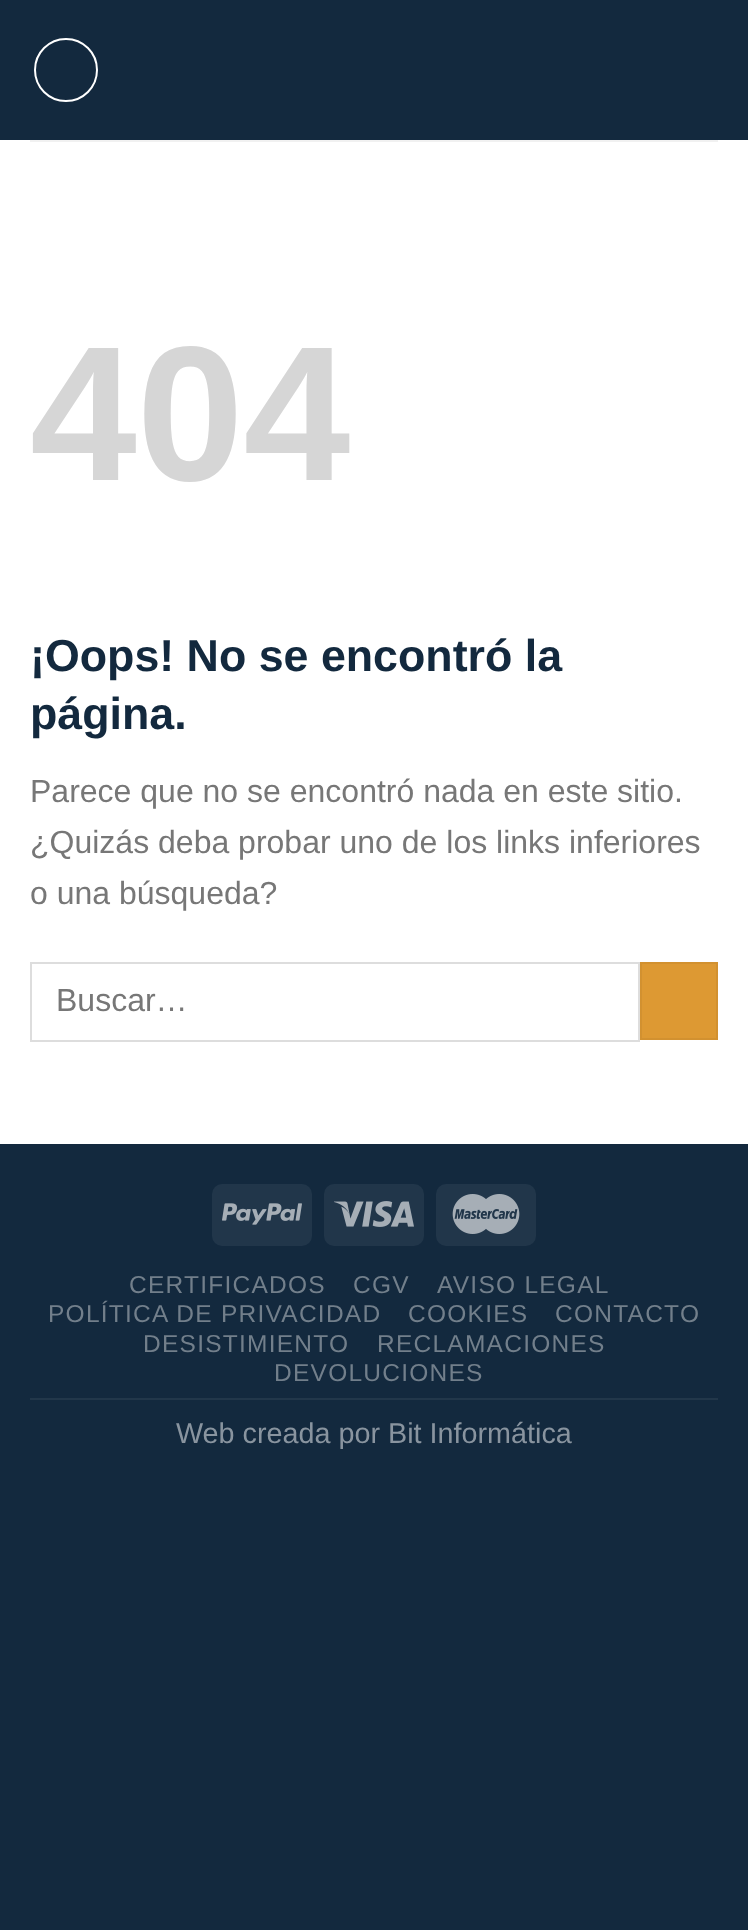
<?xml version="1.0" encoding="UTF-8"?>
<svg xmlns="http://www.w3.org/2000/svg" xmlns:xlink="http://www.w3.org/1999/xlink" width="748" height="1930">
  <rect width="100%" height="100%" fill="#13293e" />
  <rect y="140" width="748" height="1004" fill="#ffffff" />
  <circle cx="66" cy="70" r="31" fill="none" stroke="#ffffff" stroke-width="2" />
  <rect x="30" y="140" width="688" height="2" fill="#f1f1f1" />
  <rect x="31" y="963" width="608" height="78" fill="none" stroke="#dddddd" stroke-width="2" />
  <rect x="641" y="963" width="76" height="76" fill="#dd9933" stroke="#d29130" stroke-width="2" />
  <rect x="212" y="1184" width="100" height="62" rx="10" fill="#21364a" />
  <image x="222" y="1203" width="80" height="22" xlink:href="image1.png" />
  <rect x="324" y="1184" width="100" height="62" rx="10" fill="#21364a" />
  <image x="334" y="1201" width="80" height="26" xlink:href="image2.png" />
  <rect x="436" y="1184" width="100" height="62" rx="10" fill="#21364a" />
  <image x="452" y="1194" width="68" height="40" xlink:href="image3.png" />
  <rect x="30" y="1398" width="688" height="2" fill="#22374a" />
  <text x="30" y="480" style="font-family: Liberation Sans; font-size: 192px; font-weight: bold; fill: #d6d6d6">404</text>
  <text x="30" y="671" style="font-family: Liberation Sans; font-size: 44.75px; font-weight: bold; fill: #13293e">¡Oops! No se encontró la</text>
  <text x="30" y="729" style="font-family: Liberation Sans; font-size: 44.75px; font-weight: bold; fill: #13293e">página.</text>
  <text x="30" y="802" style="font-family: Liberation Sans; font-size: 32px; fill: #777777">Parece que no se encontró nada en este sitio.</text>
  <text x="30" y="853" style="font-family: Liberation Sans; font-size: 32px; fill: #777777">¿Quizás deba probar uno de los links inferiores</text>
  <text x="30" y="904" style="font-family: Liberation Sans; font-size: 32px; fill: #777777">o una búsqueda?</text>
  <text x="56" y="1011" style="font-family: Liberation Sans; font-size: 32px; fill: #777777">Buscar…</text>
  <text x="129" y="1293" style="font-family: Liberation Sans; font-size: 24.5px; letter-spacing: 1.25px; fill: #727f8b">CERTIFICADOS</text>
  <text x="353" y="1293" style="font-family: Liberation Sans; font-size: 24.5px; letter-spacing: 1.25px; fill: #727f8b">CGV</text>
  <text x="437" y="1293" style="font-family: Liberation Sans; font-size: 24.5px; letter-spacing: 1.25px; fill: #727f8b">AVISO LEGAL</text>
  <text x="48" y="1322" style="font-family: Liberation Sans; font-size: 24.5px; letter-spacing: 1.25px; fill: #727f8b">POLÍTICA DE PRIVACIDAD</text>
  <text x="408" y="1322" style="font-family: Liberation Sans; font-size: 24.5px; letter-spacing: 1.25px; fill: #727f8b">COOKIES</text>
  <text x="555" y="1322" style="font-family: Liberation Sans; font-size: 24.5px; letter-spacing: 1.25px; fill: #727f8b">CONTACTO</text>
  <text x="143" y="1352" style="font-family: Liberation Sans; font-size: 24.5px; letter-spacing: 1.25px; fill: #727f8b">DESISTIMIENTO</text>
  <text x="377" y="1352" style="font-family: Liberation Sans; font-size: 24.5px; letter-spacing: 1.25px; fill: #727f8b">RECLAMACIONES</text>
  <text x="274" y="1381" style="font-family: Liberation Sans; font-size: 24.5px; letter-spacing: 1.25px; fill: #727f8b">DEVOLUCIONES</text>
  <text x="176" y="1443" style="font-family: Liberation Sans; font-size: 28.75px; fill: #89949f">Web creada por Bit Informática</text>
</svg>
